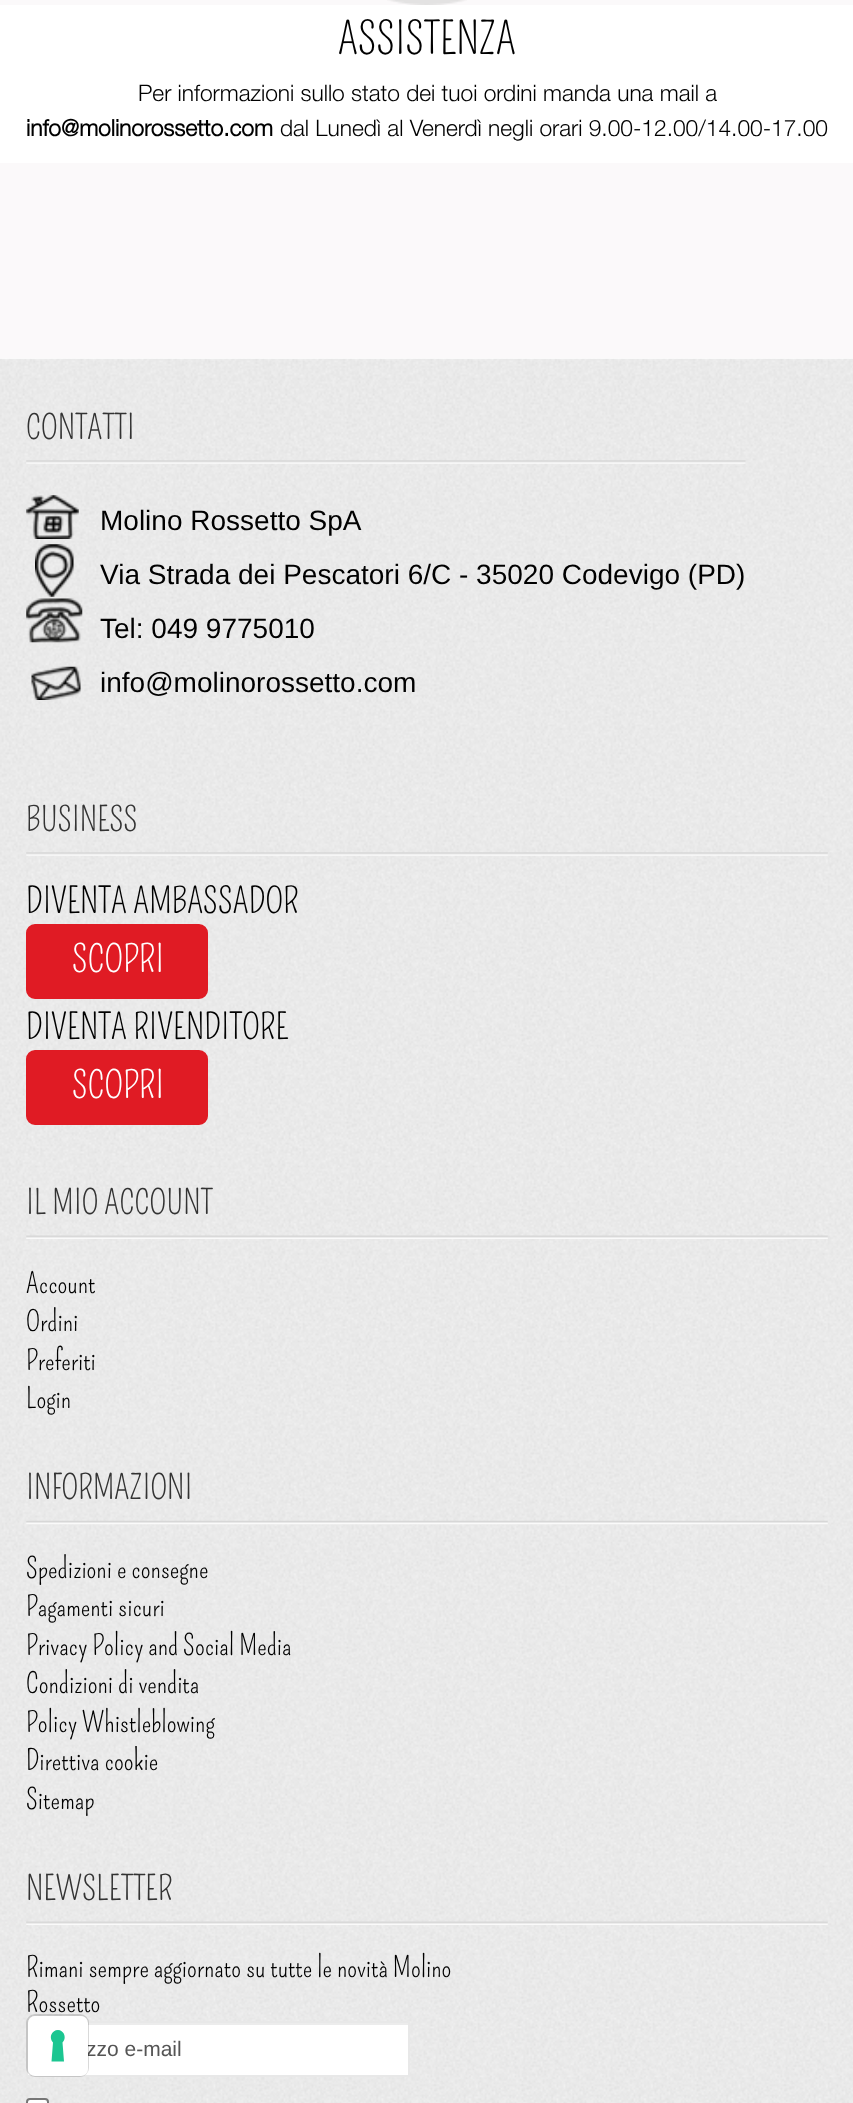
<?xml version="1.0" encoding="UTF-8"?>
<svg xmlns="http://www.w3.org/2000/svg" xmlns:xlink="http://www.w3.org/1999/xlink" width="853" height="2103">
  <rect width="100%" height="100%" fill="#ffffff" />
  <rect width="853" height="358" fill="#fbf9fa" />
  <image x="387" y="0" width="80" height="5" xlink:href="image1.png" />
  <rect y="5" width="853" height="158" fill="#ffffff" />
  <image x="0" y="358" width="853" height="1745" xlink:href="image2.png" />
  <image x="26" y="460" width="720" height="4" xlink:href="image3.png" />
  <image x="26" y="495" width="53" height="44" xlink:href="image4.png" />
  <image x="35" y="544" width="39" height="53" xlink:href="image5.png" />
  <image x="26" y="598" width="57" height="45" xlink:href="image6.png" />
  <image x="31" y="666" width="50" height="34" xlink:href="image7.png" />
  <image x="26" y="852" width="802" height="4" xlink:href="image8.png" />
  <rect x="27" y="925" width="180" height="73" rx="8" fill="#e01b24" stroke="#e01b24" stroke-width="2" />
  <rect x="27" y="1051" width="180" height="73" rx="8" fill="#e01b24" stroke="#e01b24" stroke-width="2" />
  <image x="26" y="1235" width="802" height="4" xlink:href="image9.png" />
  <image x="26" y="1520" width="802" height="5" xlink:href="image10.png" />
  <image x="26" y="1921" width="802" height="4" xlink:href="image11.png" />
  <rect x="28" y="2025" width="380" height="50" fill="#ffffff" />
  <rect x="88" y="2023" width="320" height="2" fill="#ececec" />
  <rect x="27" y="2022" width="382" height="54" fill="none" stroke="#e8e8e8" stroke-width="2" />
  <rect x="27" y="2099" width="21" height="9" rx="3" fill="#ffffff" stroke="#767676" stroke-width="2" />
  <text x="338" y="54" style="font-family: Pompiere; font-size: 43.75px; fill: #000000">ASSISTENZA</text>
  <text x="138" y="101" style="font-family: Helvetica Neue; font-size: 22.75px; font-weight: 300; fill: #000000">Per informazioni sullo stato dei tuoi ordini manda una mail a</text>
  <text x="26" y="136" style="font-family: Helvetica Neue; font-size: 22.75px; font-weight: bold; fill: #000000">info@molinorossetto.com</text>
  <text x="280" y="136" style="font-family: Helvetica Neue; font-size: 22.75px; font-weight: 300; fill: #000000">dal Lunedì al Venerdì negli orari 9.00-12.00/14.00-17.00</text>
  <text x="26" y="439" style="font-family: Pompiere; font-size: 33.25px; fill: #333333">CONTATTI</text>
  <text x="100" y="530" style="font-family: Liberation Sans; font-size: 28px; fill: #000000">Molino Rossetto SpA</text>
  <text x="100" y="584" style="font-family: Liberation Sans; font-size: 28px; fill: #000000">Via Strada dei Pescatori 6/C - 35020 Codevigo (PD)</text>
  <text x="100" y="638" style="font-family: Liberation Sans; font-size: 28px; fill: #000000">Tel: 049 9775010</text>
  <text x="100" y="692" style="font-family: Liberation Sans; font-size: 28px; fill: #000000">info@molinorossetto.com</text>
  <text x="26" y="831" style="font-family: Pompiere; font-size: 33.25px; fill: #333333">BUSINESS</text>
  <text x="26" y="913" style="font-family: Pompiere; font-size: 35px; fill: #000000">DIVENTA AMBASSADOR</text>
  <text x="72" y="972" style="font-family: Pompiere; font-size: 37px; fill: #ffffff">SCOPRI</text>
  <text x="26" y="1039" style="font-family: Pompiere; font-size: 35px; fill: #000000">DIVENTA RIVENDITORE</text>
  <text x="72" y="1098" style="font-family: Pompiere; font-size: 37px; fill: #ffffff">SCOPRI</text>
  <text x="26" y="1214" style="font-family: Pompiere; font-size: 33.25px; fill: #333333">IL MIO ACCOUNT</text>
  <text x="26" y="1293" style="font-family: Pompiere; font-size: 28px; fill: #000000">Account</text>
  <text x="26" y="1331" style="font-family: Pompiere; font-size: 28px; fill: #000000">Ordini</text>
  <text x="26" y="1370" style="font-family: Pompiere; font-size: 28px; fill: #000000">Preferiti</text>
  <text x="26" y="1408" style="font-family: Pompiere; font-size: 28px; fill: #000000">Login</text>
  <text x="26" y="1499" style="font-family: Pompiere; font-size: 33.25px; fill: #333333">INFORMAZIONI</text>
  <text x="26" y="1578" style="font-family: Pompiere; font-size: 28px; fill: #000000">Spedizioni e consegne</text>
  <text x="26" y="1616" style="font-family: Pompiere; font-size: 28px; fill: #000000">Pagamenti sicuri</text>
  <text x="26" y="1655" style="font-family: Pompiere; font-size: 28px; fill: #000000">Privacy Policy and Social Media</text>
  <text x="26" y="1693" style="font-family: Pompiere; font-size: 28px; fill: #000000">Condizioni di vendita</text>
  <text x="26" y="1732" style="font-family: Pompiere; font-size: 28px; fill: #000000">Policy Whistleblowing</text>
  <text x="26" y="1770" style="font-family: Pompiere; font-size: 28px; fill: #000000">Direttiva cookie</text>
  <text x="26" y="1809" style="font-family: Pompiere; font-size: 28px; fill: #000000">Sitemap</text>
  <text x="26" y="1900" style="font-family: Pompiere; font-size: 33.25px; fill: #333333">NEWSLETTER</text>
  <text x="26" y="1977" style="font-family: Pompiere; font-size: 28px; fill: #000000">Rimani sempre aggiornato su tutte le novità Molino</text>
  <text x="26" y="2012" style="font-family: Pompiere; font-size: 28px; fill: #000000">Rossetto</text>
  <text x="86" y="2056" style="font-family: Liberation Sans; font-size: 21px; fill: #555555">zzo e-mail</text>
  <rect x="27" y="2015" width="61" height="61" rx="8" fill="none" stroke="#000000" stroke-opacity="0.15" stroke-width="2" />
  <rect x="28" y="2016" width="60" height="60" rx="7" fill="#ffffff" />
  <path d="M 58 2030 c 6 0 9 8 4.5 12.5 l 1.5 19 h -12.5 l 1.5 -19 c -4.5 -4.5 -1.5 -12.5 5 -12.5 z" fill="#1cc691" fill-rule="evenodd" />
</svg>
